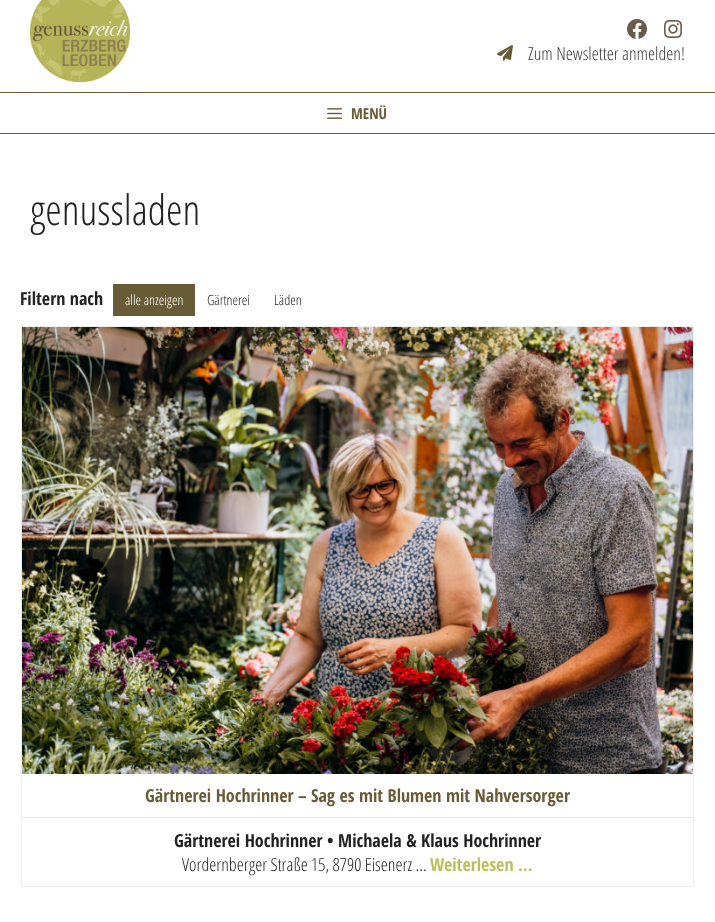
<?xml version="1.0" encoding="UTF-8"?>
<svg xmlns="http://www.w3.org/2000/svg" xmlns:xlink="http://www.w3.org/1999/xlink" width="715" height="922">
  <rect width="100%" height="100%" fill="#ffffff" />
  <image x="30" y="0" width="100" height="82" xlink:href="image1.png" />
  <image x="627" y="19" width="20" height="20" xlink:href="image2.png" />
  <image x="664" y="20" width="18" height="18" xlink:href="image3.png" />
  <image x="497" y="45" width="16" height="16" xlink:href="image4.png" />
  <rect y="92" width="715" height="1" fill="#695b35" />
  <rect y="133" width="715" height="1" fill="#695b35" />
  <image x="327" y="108" width="15" height="11" xlink:href="image5.png" />
  <rect x="113" y="284" width="82" height="32" fill="#695b35" />
  <rect x="21.5" y="326.5" width="672" height="560" fill="none" stroke="#eeeeee" />
  <image x="22" y="327" width="671" height="447" xlink:href="image6.png" />
  <rect x="22" y="817" width="671" height="1" fill="#e6e6e6" />
  <text x="528" y="60" style="font-family: Open Sans Condensed; font-size: 18px; font-weight: 300; fill: #3a3a3a">Zum Newsletter anmelden!</text>
  <text x="351" y="119" style="font-family: Open Sans Condensed; font-size: 15px; font-weight: bold; fill: #695b35">MENÜ</text>
  <text x="30" y="225" style="font-family: Open Sans Condensed; font-size: 42px; font-weight: 300; fill: #222222">genussladen</text>
  <text x="20" y="305" style="font-family: Open Sans Condensed; font-size: 18px; font-weight: bold; fill: #222222">Filtern nach</text>
  <text x="125" y="305" style="font-family: Open Sans Condensed; font-size: 14px; font-weight: 300; fill: #ffffff">alle anzeigen</text>
  <text x="207" y="305" style="font-family: Open Sans Condensed; font-size: 14px; font-weight: 300; fill: #222222">Gärtnerei</text>
  <text x="274" y="305" style="font-family: Open Sans Condensed; font-size: 14px; font-weight: 300; fill: #222222">Läden</text>
  <text x="145" y="802" style="font-family: Open Sans Condensed; font-size: 18px; font-weight: bold; fill: #695b35">Gärtnerei Hochrinner – Sag es mit Blumen mit Nahversorger</text>
  <text x="174" y="847" style="font-family: Open Sans Condensed; font-size: 18px; font-weight: bold; fill: #222222">Gärtnerei Hochrinner • Michaela &amp; Klaus Hochrinner</text>
  <text x="182" y="871" style="font-family: Open Sans Condensed; font-size: 18px; font-weight: 300; fill: #222222">Vordernberger Straße 15, 8790 Eisenerz ...</text>
  <text x="430" y="871" style="font-family: Open Sans Condensed; font-size: 18px; font-weight: bold; fill: #bbc05b">Weiterlesen …</text>
</svg>
